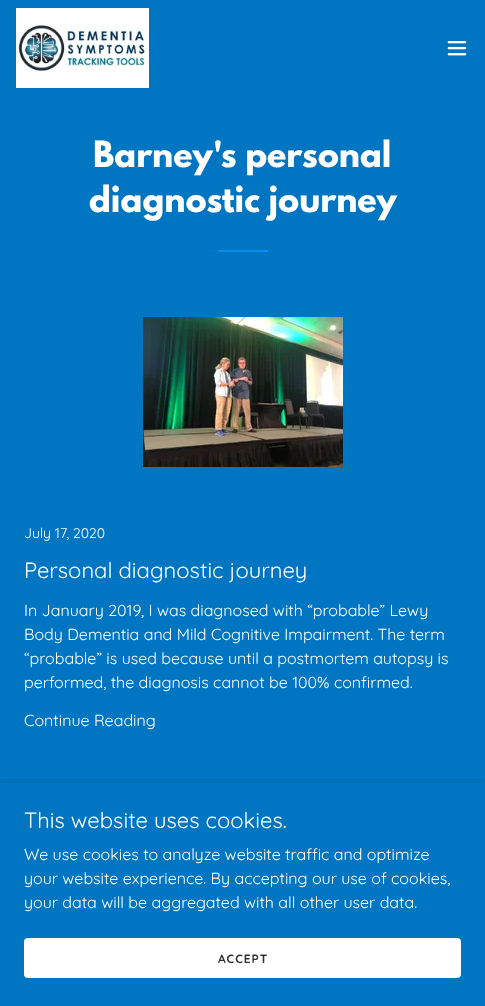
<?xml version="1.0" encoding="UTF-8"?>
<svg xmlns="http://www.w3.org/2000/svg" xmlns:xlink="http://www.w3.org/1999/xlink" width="485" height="1006">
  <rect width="100%" height="100%" fill="#0075c1" />
  <image x="16" y="8" width="133" height="80" xlink:href="image1.png" />
  <image x="447" y="41" width="20" height="15" xlink:href="image2.png" />
  <rect x="218" y="250" width="50" height="2" fill="#008fea" />
  <image x="143" y="317" width="200" height="150" xlink:href="image3.png" />
  <rect y="785" width="485" height="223" fill="#000000" fill-opacity="0.3" filter="blur(3px)" />
  <rect y="783" width="485" height="223" fill="#0075c1" />
  <rect x="24" y="938" width="437" height="40" rx="4" fill="#ffffff" />
  <text x="93" y="167" style="font-family: League Spartan; font-size: 32px; font-weight: bold; fill: #ffffff">Barney's personal</text>
  <text x="89" y="212" style="font-family: League Spartan; font-size: 32px; font-weight: bold; fill: #ffffff">diagnostic journey</text>
  <text x="24" y="538" style="font-family: Quicksand; font-size: 14px; fill: #ffffff">July 17, 2020</text>
  <text x="24" y="578" style="font-family: Quicksand; font-size: 22px; fill: #ffffff">Personal diagnostic journey</text>
  <text x="24" y="616" style="font-family: Quicksand; font-size: 16px; fill: #ffffff">In January 2019, I was diagnosed with “probable” Lewy</text>
  <text x="24" y="640" style="font-family: Quicksand; font-size: 16px; fill: #ffffff">Body Dementia and Mild Cognitive Impairment. The term</text>
  <text x="24" y="664" style="font-family: Quicksand; font-size: 16px; fill: #ffffff">“probable” is used because until a postmortem autopsy is</text>
  <text x="24" y="688" style="font-family: Quicksand; font-size: 16px; fill: #ffffff">performed, the diagnosis cannot be 100% confirmed.</text>
  <text x="24" y="726" style="font-family: Quicksand; font-size: 16px; fill: #ffffff">Continue Reading</text>
  <text x="24" y="828" style="font-family: Quicksand; font-size: 22px; fill: #ffffff">This website uses cookies.</text>
  <text x="24" y="860" style="font-family: Quicksand; font-size: 16px; fill: #ffffff">We use cookies to analyze website traffic and optimize</text>
  <text x="24" y="884" style="font-family: Quicksand; font-size: 16px; fill: #ffffff">your website experience. By accepting our use of cookies,</text>
  <text x="24" y="908" style="font-family: Quicksand; font-size: 16px; fill: #ffffff">your data will be aggregated with all other user data.</text>
  <text x="218" y="963" style="font-family: Quicksand; font-size: 12px; font-weight: bold; letter-spacing: 1px; fill: #303030">ACCEPT</text>
</svg>
